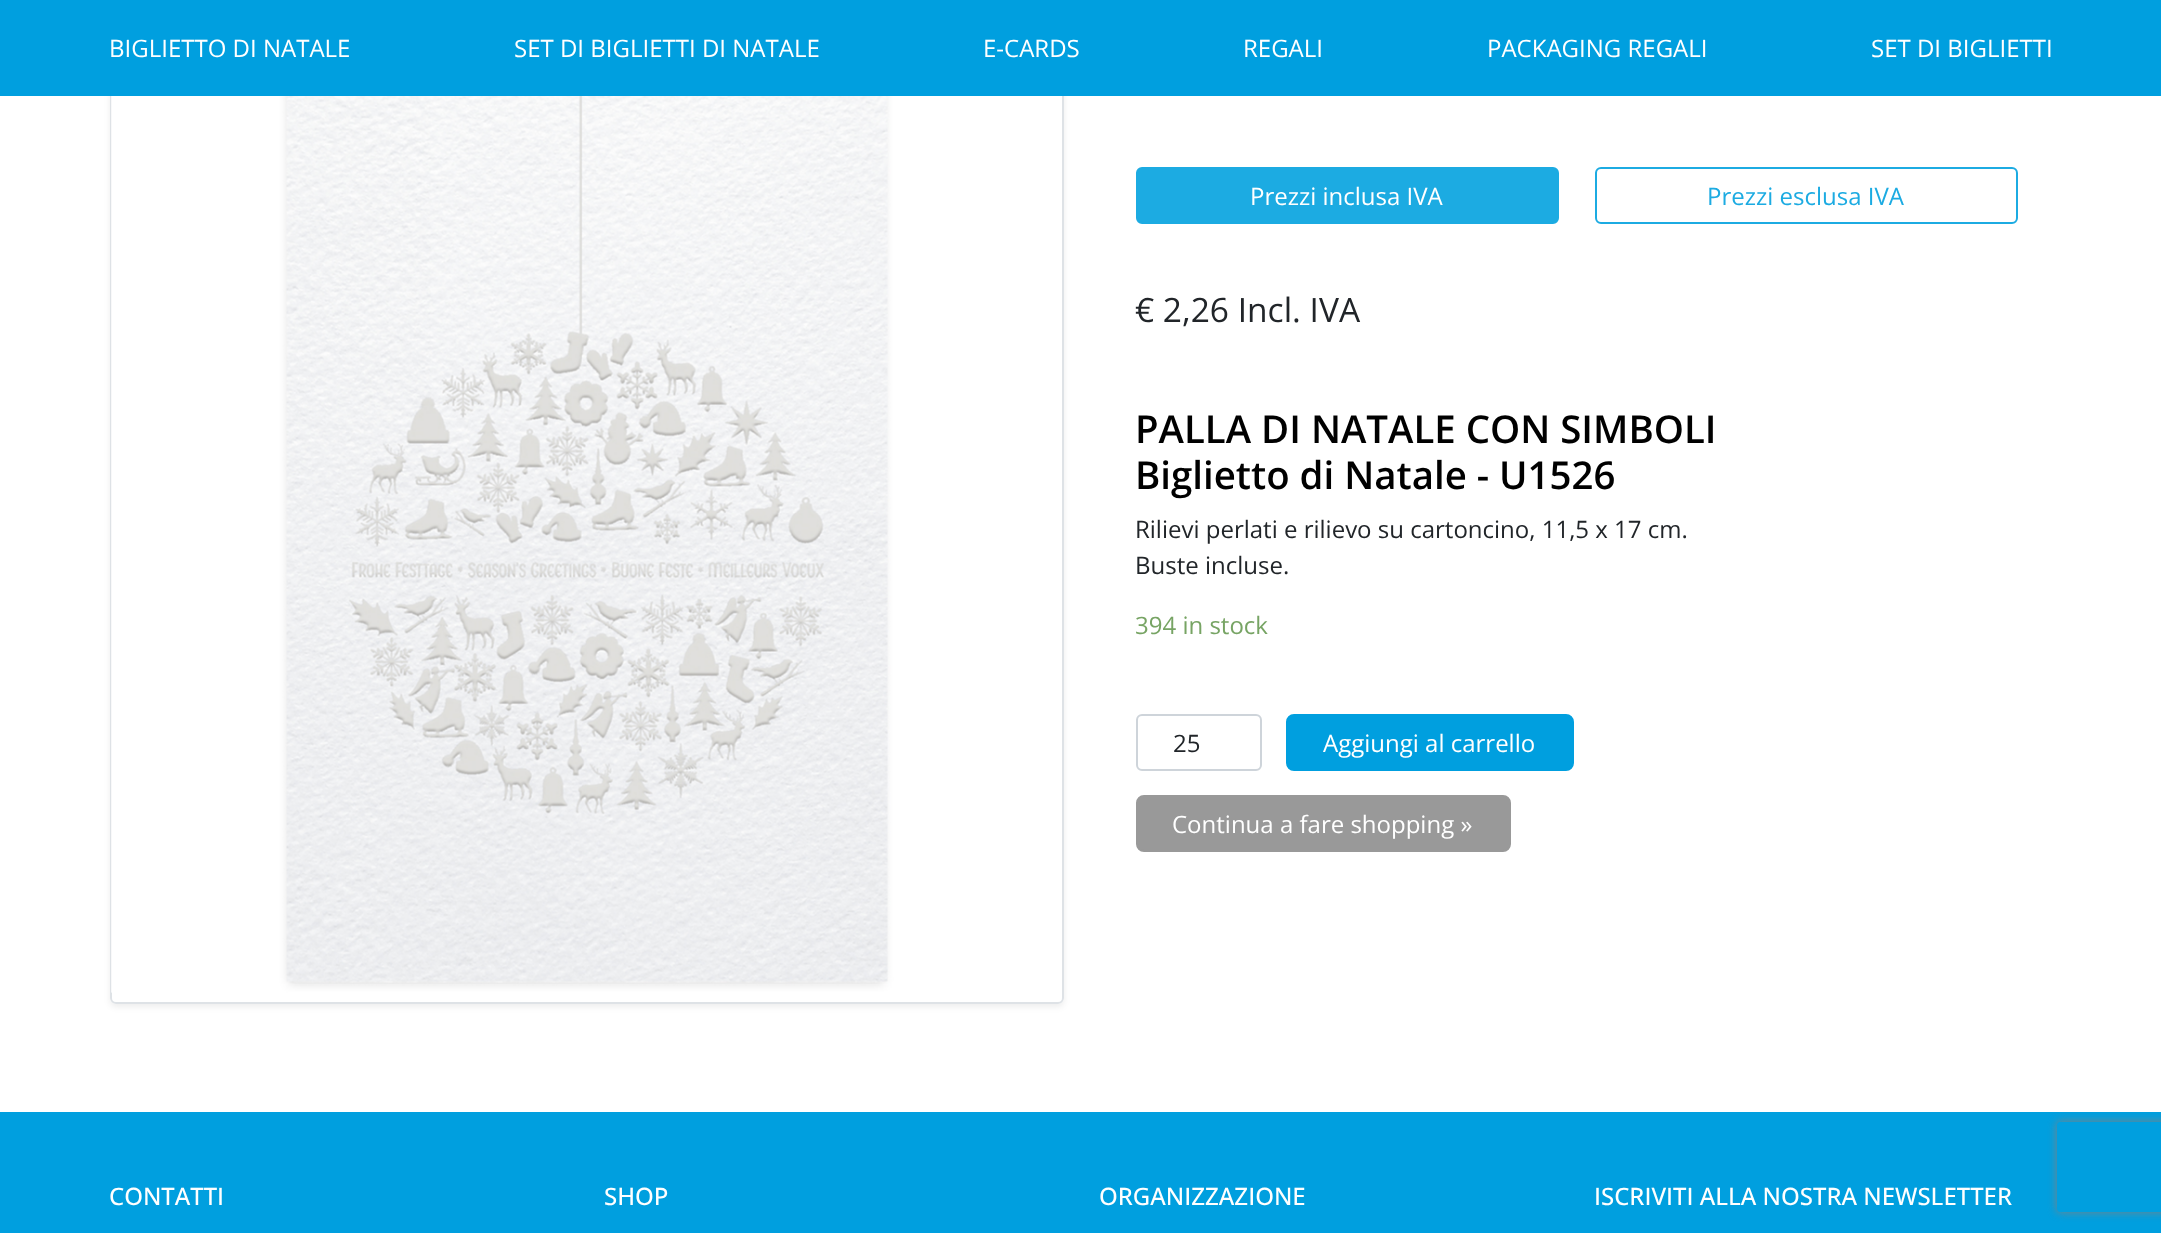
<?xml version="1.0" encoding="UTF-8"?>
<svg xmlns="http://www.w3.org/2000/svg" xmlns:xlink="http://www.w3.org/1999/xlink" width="2161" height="1233">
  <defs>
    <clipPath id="clip1"><path d="M 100 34 h 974 v 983 h -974 z m 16 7 h 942 c 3.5 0 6 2.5 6 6 v 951 c 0 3.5 -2.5 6 -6 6 h -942 c -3.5 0 -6 -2.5 -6 -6 v -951 c 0 -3.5 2.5 -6 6 -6 z" clip-rule="evenodd" /></clipPath>
    <clipPath id="clip2"><path d="M 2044 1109 h 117 v 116 h -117 z m 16 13 h 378 c 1.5 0 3 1.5 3 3 v 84 c 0 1.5 -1.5 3 -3 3 h -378 c -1.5 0 -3 -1.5 -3 -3 v -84 c 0 -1.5 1.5 -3 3 -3 z" clip-rule="evenodd" /></clipPath>
  </defs>
  <rect width="100%" height="100%" fill="#ffffff" />
  <g clip-path="url(#clip1)">
    <rect x="110" y="44" width="954" height="963" rx="6" fill="#000000" fill-opacity="0.07" filter="blur(3px)" />
  </g>
  <rect x="111" y="42" width="952" height="961" rx="5" fill="none" stroke="#dee2e6" stroke-width="2" />
  <rect width="2161" height="96" fill="#009fdf" />
  <image x="111" y="96" width="951" height="897" xlink:href="image1.png" />
  <rect x="1137" y="168" width="421" height="55" rx="5" fill="#1cabe2" stroke="#1cabe2" stroke-width="2" />
  <rect x="1596" y="168" width="421" height="55" rx="5" fill="none" stroke="#1cabe2" stroke-width="2" />
  <rect x="1137" y="715" width="124" height="55" rx="5" fill="none" stroke="#ced4da" stroke-width="2" />
  <rect x="1287" y="715" width="286" height="55" rx="7" fill="#009fdf" stroke="#009fdf" stroke-width="2" />
  <rect x="1137" y="796" width="373" height="55" rx="7" fill="#999999" stroke="#999999" stroke-width="2" />
  <rect y="1112" width="2161" height="121" fill="#009fdf" />
  <g clip-path="url(#clip2)">
    <rect x="2057" y="1122" width="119" height="90" rx="3" fill="#808080" filter="blur(4px)" />
  </g>
  <text x="109" y="57" style="font-family: Open Sans; font-size: 24px; fill: #ffffff">BIGLIETTO DI NATALE</text>
  <text x="514" y="57" style="font-family: Open Sans; font-size: 24px; fill: #ffffff">SET DI BIGLIETTI DI NATALE</text>
  <text x="983" y="57" style="font-family: Open Sans; font-size: 24px; fill: #ffffff">E-CARDS</text>
  <text x="1243" y="57" style="font-family: Open Sans; font-size: 24px; fill: #ffffff">REGALI</text>
  <text x="1487" y="57" style="font-family: Open Sans; font-size: 24px; fill: #ffffff">PACKAGING REGALI</text>
  <text x="1871" y="57" style="font-family: Open Sans; font-size: 24px; fill: #ffffff">SET DI BIGLIETTI</text>
  <text x="1250" y="205" style="font-family: Open Sans; font-size: 24px; fill: #ffffff">Prezzi inclusa IVA</text>
  <text x="1707" y="205" style="font-family: Open Sans; font-size: 24px; fill: #1cabe2">Prezzi esclusa IVA</text>
  <text x="1135" y="322" style="font-family: Open Sans; font-size: 33.5px; fill: #212529">€ 2,26 Incl. IVA</text>
  <text x="1135" y="443" style="font-family: Open Sans; font-size: 38.4px; font-weight: 600; fill: #000000">PALLA DI NATALE CON SIMBOLI</text>
  <text x="1135" y="489" style="font-family: Open Sans; font-size: 38.4px; font-weight: 600; fill: #000000">Biglietto di Natale - U1526</text>
  <text x="1135" y="538" style="font-family: Open Sans; font-size: 24px; fill: #212529">Rilievi perlati e rilievo su cartoncino, 11,5 x 17 cm.</text>
  <text x="1135" y="574" style="font-family: Open Sans; font-size: 24px; fill: #212529">Buste incluse.</text>
  <text x="1135" y="634" style="font-family: Open Sans; font-size: 24px; fill: #77a464">394 in stock</text>
  <text x="1173" y="752" style="font-family: Open Sans; font-size: 24px; fill: #212529">25</text>
  <text x="1323" y="752" style="font-family: Open Sans; font-size: 24px; fill: #ffffff">Aggiungi al carrello</text>
  <text x="1172" y="833" style="font-family: Open Sans; font-size: 24px; fill: #ffffff">Continua a fare shopping »</text>
  <text x="109" y="1205" style="font-family: Open Sans; font-size: 24px; font-weight: 500; fill: #ffffff">CONTATTI</text>
  <text x="604" y="1205" style="font-family: Open Sans; font-size: 24px; font-weight: 500; fill: #ffffff">SHOP</text>
  <text x="1099" y="1205" style="font-family: Open Sans; font-size: 24px; font-weight: 500; fill: #ffffff">ORGANIZZAZIONE</text>
  <text x="1594" y="1205" style="font-family: Open Sans; font-size: 24px; font-weight: 500; fill: #ffffff">ISCRIVITI ALLA NOSTRA NEWSLETTER</text>
</svg>
